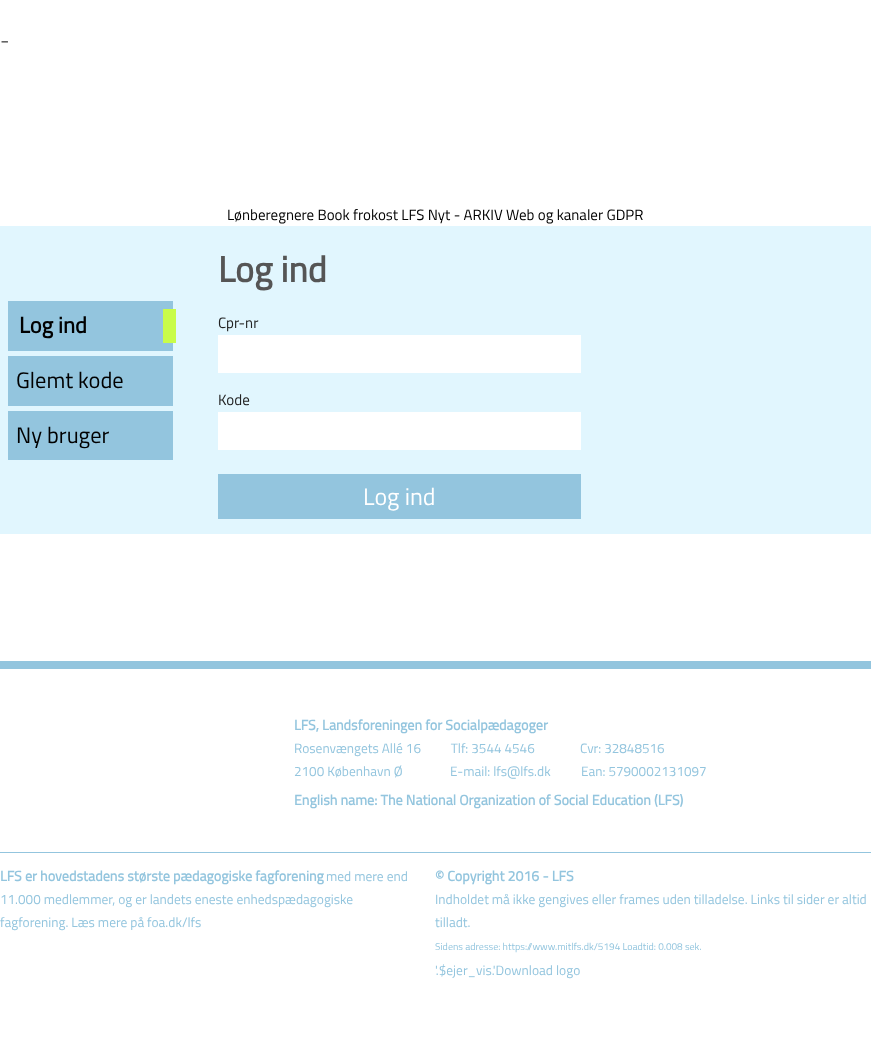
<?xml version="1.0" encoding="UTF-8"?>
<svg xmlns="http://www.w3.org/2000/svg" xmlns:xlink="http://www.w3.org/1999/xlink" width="871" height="1053">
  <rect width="100%" height="100%" fill="#ffffff" />
  <rect y="226" width="871" height="308" fill="#e1f6fe" />
  <rect x="8" y="301" width="165" height="50" fill="#93c5de" />
  <rect x="163" y="309" width="13" height="34" fill="#c9fc49" />
  <rect x="8" y="356" width="165" height="50" fill="#93c5de" />
  <rect x="8" y="411" width="165" height="49" fill="#93c5de" />
  <rect x="218" y="335" width="363" height="38" fill="#ffffff" />
  <rect x="218" y="412" width="363" height="38" fill="#ffffff" />
  <rect x="218" y="474" width="363" height="45" fill="#93c5de" />
  <rect y="661" width="871" height="8" fill="#93c5de" />
  <rect y="852" width="871" height="1" fill="#93c5de" />
  <text x="0" y="40" style="font-family: Titillium Web; font-size: 15px; fill: #000000">_</text>
  <text x="227" y="220" style="font-family: Titillium Web; font-size: 15px; fill: #000000">Lønberegnere Book frokost LFS Nyt - ARKIV Web og kanaler GDPR</text>
  <text x="19" y="333" style="font-family: Titillium Web; font-size: 22.5px; font-weight: bold; fill: #000000">Log ind</text>
  <text x="16" y="388" style="font-family: Titillium Web; font-size: 22.5px; fill: #000000">Glemt kode</text>
  <text x="16" y="443" style="font-family: Titillium Web; font-size: 22.5px; fill: #000000">Ny bruger</text>
  <text x="218" y="282" style="font-family: Titillium Web; font-size: 36px; font-weight: bold; fill: #555555">Log ind</text>
  <text x="218" y="328" style="font-family: Titillium Web; font-size: 15px; fill: #222222">Cpr-nr</text>
  <text x="218" y="405" style="font-family: Titillium Web; font-size: 15px; fill: #222222">Kode</text>
  <text x="363" y="505" style="font-family: Titillium Web; font-size: 24px; fill: #ffffff">Log ind</text>
  <text x="294" y="730" style="font-family: Titillium Web; font-size: 14.2px; font-weight: bold; fill: #93c5de">LFS, Landsforeningen for Socialpædagoger</text>
  <text x="294" y="753" style="font-family: Titillium Web; font-size: 13.5px; fill: #93c5de" xml:space="preserve">Rosenvængets Allé 16          Tlf: 3544 4546</text>
  <text x="580" y="753" style="font-family: Titillium Web; font-size: 13.5px; fill: #93c5de">Cvr: 32848516</text>
  <text x="294" y="776" style="font-family: Titillium Web; font-size: 13.5px; fill: #93c5de" xml:space="preserve">2100 København Ø                E-mail: lfs@lfs.dk</text>
  <text x="581" y="776" style="font-family: Titillium Web; font-size: 13.5px; fill: #93c5de">Ean: 5790002131097</text>
  <text x="294" y="805" style="font-family: Titillium Web; font-size: 14.2px; font-weight: bold; fill: #93c5de">English name: The National Organization of Social Education (LFS)</text>
  <text x="0" y="881" style="font-family: Titillium Web; font-size: 14.2px; font-weight: bold; fill: #93c5de">LFS er hovedstadens største pædagogiske fagforening</text>
  <text x="326" y="881" style="font-family: Titillium Web; font-size: 13.5px; fill: #93c5de">med mere end</text>
  <text x="0" y="904" style="font-family: Titillium Web; font-size: 13.5px; fill: #93c5de">11.000 medlemmer, og er landets eneste enhedspædagogiske</text>
  <text x="0" y="927" style="font-family: Titillium Web; font-size: 13.5px; fill: #93c5de">fagforening. Læs mere på foa.dk/lfs</text>
  <text x="435" y="881" style="font-family: Titillium Web; font-size: 14.2px; font-weight: bold; fill: #93c5de">© Copyright 2016 - LFS</text>
  <text x="435" y="904" style="font-family: Titillium Web; font-size: 13.5px; fill: #93c5de">Indholdet må ikke gengives eller frames uden tilladelse. Links til sider er altid</text>
  <text x="435" y="927" style="font-family: Titillium Web; font-size: 13.5px; fill: #93c5de">tilladt.</text>
  <text x="435" y="950" style="font-family: Titillium Web; font-size: 10px; fill: #93c5de">Sidens adresse: https://www.mitlfs.dk/5194 Loadtid: 0.008 sek.</text>
  <text x="435" y="975" style="font-family: Titillium Web; font-size: 13.5px; fill: #93c5de">'.$ejer_vis.'Download logo</text>
</svg>
